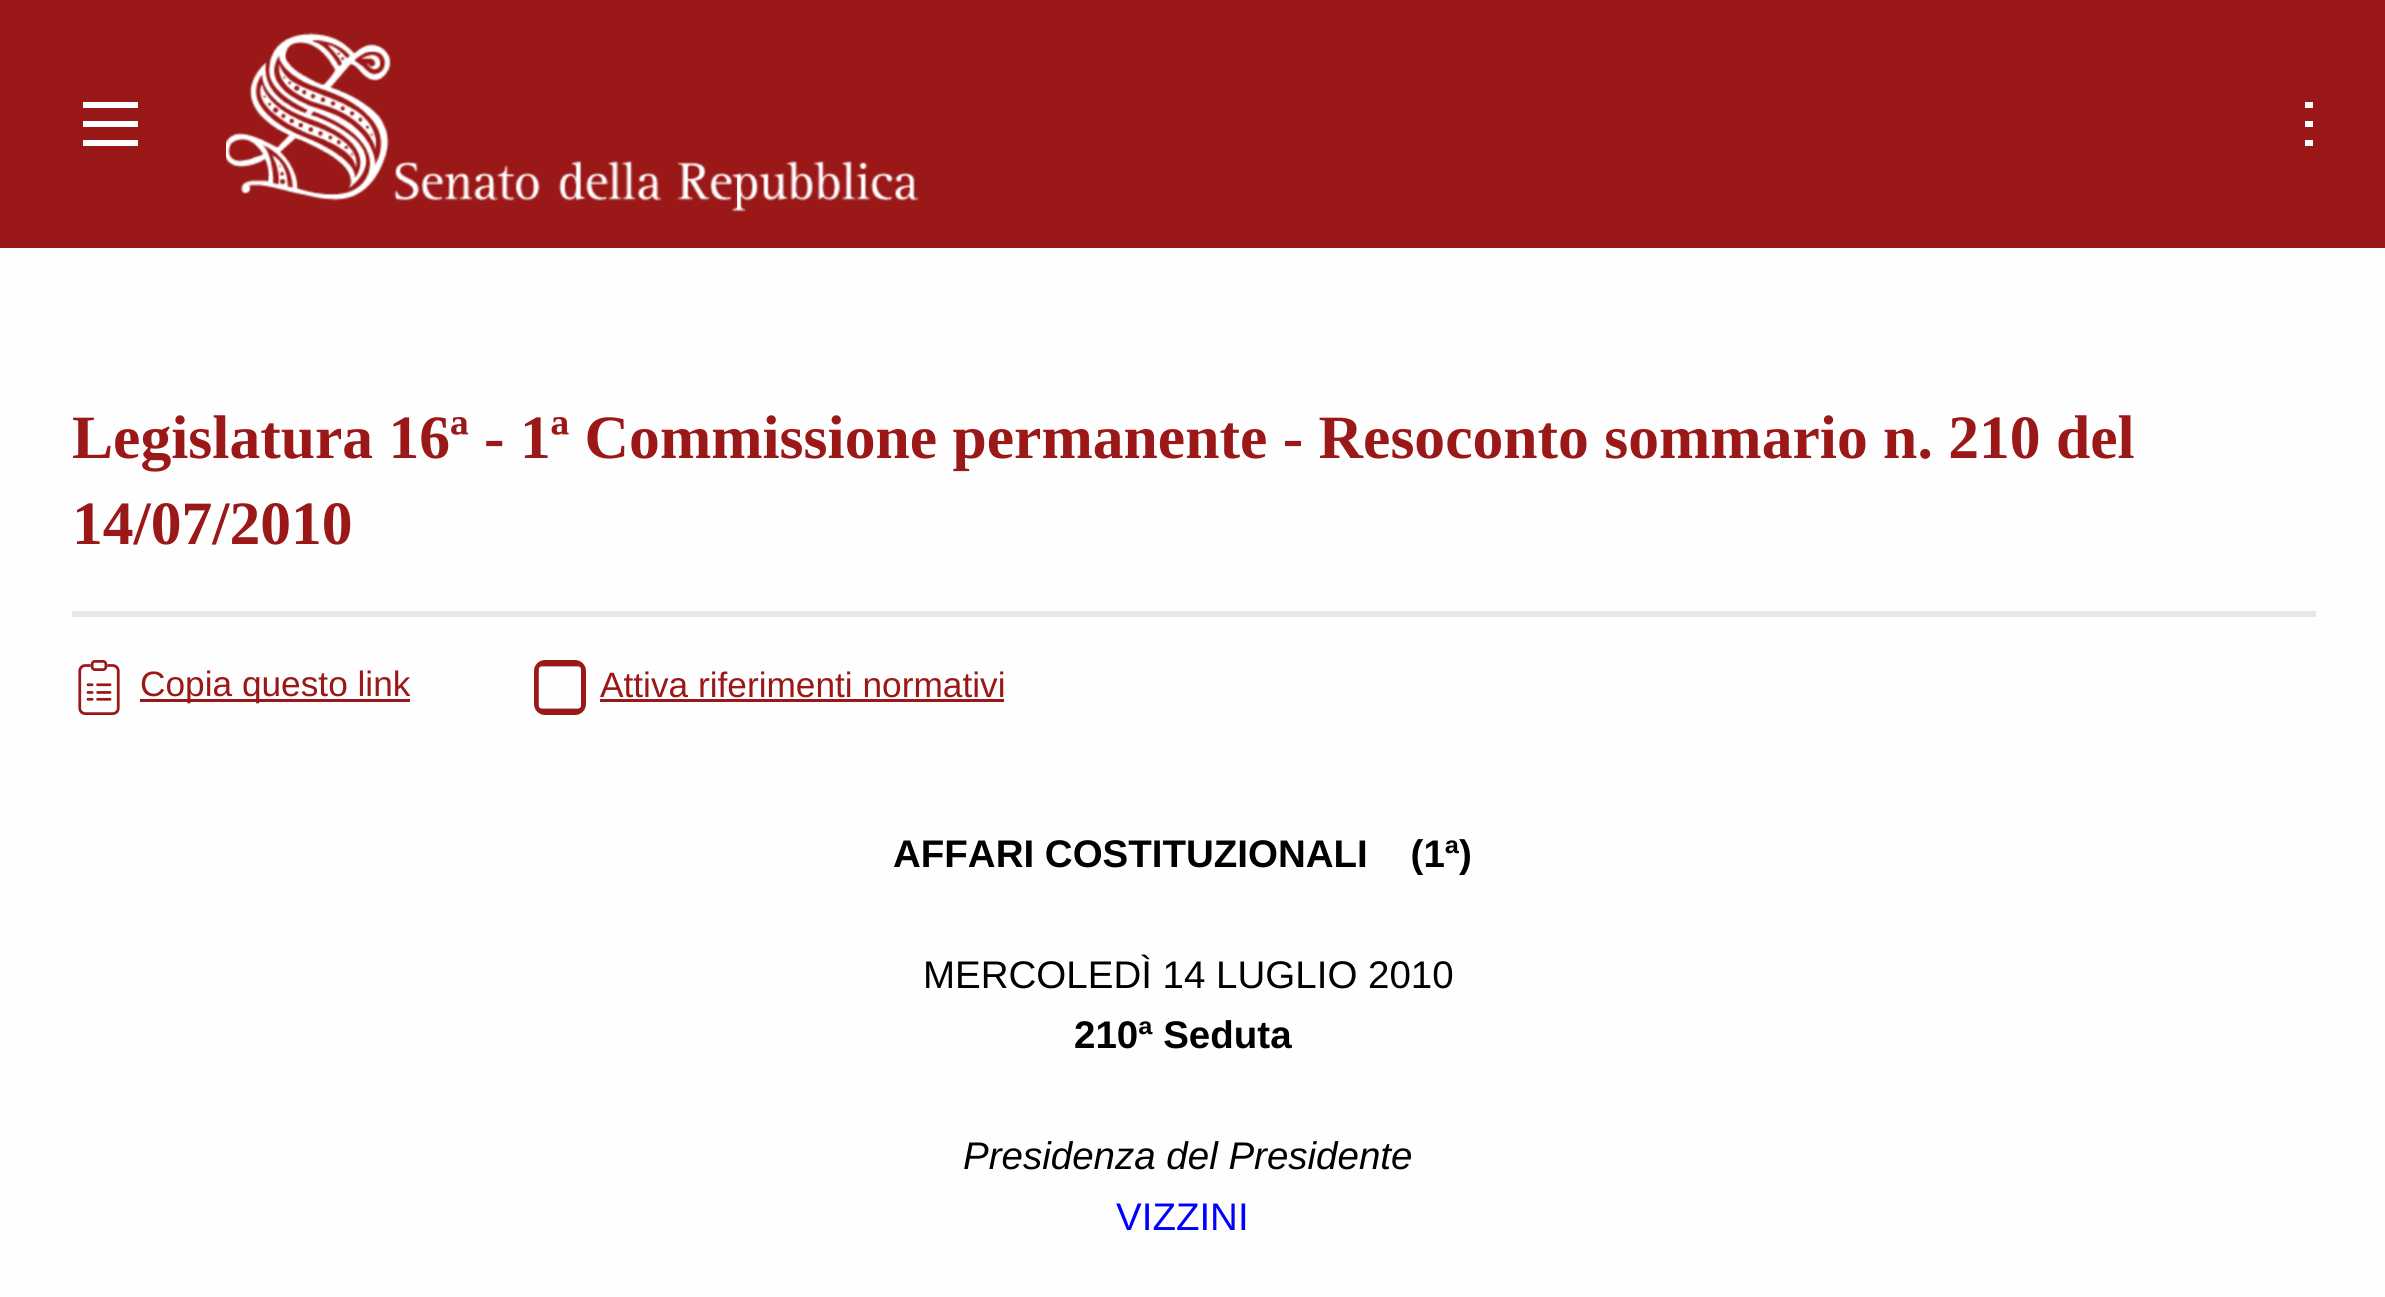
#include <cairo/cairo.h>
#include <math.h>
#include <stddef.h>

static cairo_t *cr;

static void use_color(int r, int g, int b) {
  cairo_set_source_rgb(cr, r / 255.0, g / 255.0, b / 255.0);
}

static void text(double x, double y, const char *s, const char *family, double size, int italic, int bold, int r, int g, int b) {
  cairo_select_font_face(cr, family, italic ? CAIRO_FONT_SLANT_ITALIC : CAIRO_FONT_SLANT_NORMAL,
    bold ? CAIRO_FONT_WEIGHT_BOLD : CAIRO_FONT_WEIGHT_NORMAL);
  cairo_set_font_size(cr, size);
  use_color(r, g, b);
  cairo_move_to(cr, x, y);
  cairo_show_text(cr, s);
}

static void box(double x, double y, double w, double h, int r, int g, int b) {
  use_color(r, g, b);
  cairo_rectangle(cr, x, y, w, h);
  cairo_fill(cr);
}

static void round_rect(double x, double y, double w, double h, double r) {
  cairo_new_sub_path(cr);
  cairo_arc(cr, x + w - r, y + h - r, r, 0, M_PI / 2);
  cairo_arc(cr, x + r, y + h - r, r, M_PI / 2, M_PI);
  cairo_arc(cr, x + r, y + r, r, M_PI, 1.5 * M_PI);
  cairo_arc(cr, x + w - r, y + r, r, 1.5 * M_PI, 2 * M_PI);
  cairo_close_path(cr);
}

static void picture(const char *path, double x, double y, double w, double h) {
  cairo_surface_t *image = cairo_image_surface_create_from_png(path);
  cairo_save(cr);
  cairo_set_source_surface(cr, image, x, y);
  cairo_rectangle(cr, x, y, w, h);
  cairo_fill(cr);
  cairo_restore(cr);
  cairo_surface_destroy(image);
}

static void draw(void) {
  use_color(254, 254, 254);
  cairo_paint(cr);
  box(0, 0, 2385, 248, 155, 24, 24);
  box(83, 140, 55, 6, 254, 254, 254);
  box(83, 121, 55, 6, 254, 254, 254);
  box(83, 102, 55, 6, 254, 254, 254);
  picture("img_01.png", 226, 32, 693, 180);
  box(2305, 140, 8, 6, 254, 254, 254);
  box(2305, 121, 8, 6, 254, 254, 254);
  box(2305, 102, 8, 6, 254, 254, 254);
  box(72, 611, 2244, 6, 231, 231, 231);
  picture("img_02.png", 78, 660, 42, 55);
  box(140, 699, 270, 3, 155, 24, 24);
  picture("img_03.png", 535, 663, 50, 49);
  round_rect(535.5, 661.5, 49, 52, 9.5);
  cairo_set_line_width(cr, 3);
  cairo_stroke(cr);
  box(600, 699, 404, 3, 155, 24, 24);
  text(72, 458, "Legislatura 16ª - 1ª Commissione permanente - Resoconto sommario n. 210 del", "Liberation Serif", 61.6, 0, 1, 155, 24, 24);
  text(72, 544, "14/07/2010", "Liberation Serif", 61.6, 0, 1, 155, 24, 24);
  text(140, 696, "Copia questo link", "Liberation Sans", 35.25, 0, 0, 155, 24, 24);
  text(600, 697, "Attiva riferimenti normativi", "Liberation Sans", 35.25, 0, 0, 155, 24, 24);
  text(893, 867, "AFFARI COSTITUZIONALI    (1ª)", "Liberation Sans", 38.5, 0, 1, 0, 0, 0);
  text(923, 988, "MERCOLEDÌ 14 LUGLIO 2010", "Liberation Sans", 38.5, 0, 0, 0, 0, 0);
  text(1074, 1048, "210ª Seduta", "Liberation Sans", 38.5, 0, 1, 0, 0, 0);
  text(963, 1169, "Presidenza del Presidente", "Liberation Sans", 38.5, 1, 0, 0, 0, 0);
  text(1116, 1230, "VIZZINI", "Liberation Sans", 38.5, 0, 0, 0, 0, 255);
}

int main(void) {
  cairo_surface_t *surface = cairo_image_surface_create(CAIRO_FORMAT_RGB24, 2385, 1297);
  cr = cairo_create(surface);
  cairo_font_options_t *options = cairo_font_options_create();
  cairo_font_options_set_hint_metrics(options, CAIRO_HINT_METRICS_OFF);
  cairo_font_options_set_hint_style(options, CAIRO_HINT_STYLE_NONE);
  cairo_set_font_options(cr, options);
  cairo_set_miter_limit(cr, 4);
  draw();
  cairo_surface_write_to_png(surface, "out.png");
  cairo_font_options_destroy(options);
  cairo_destroy(cr);
  cairo_surface_destroy(surface);
  return 0;
}
